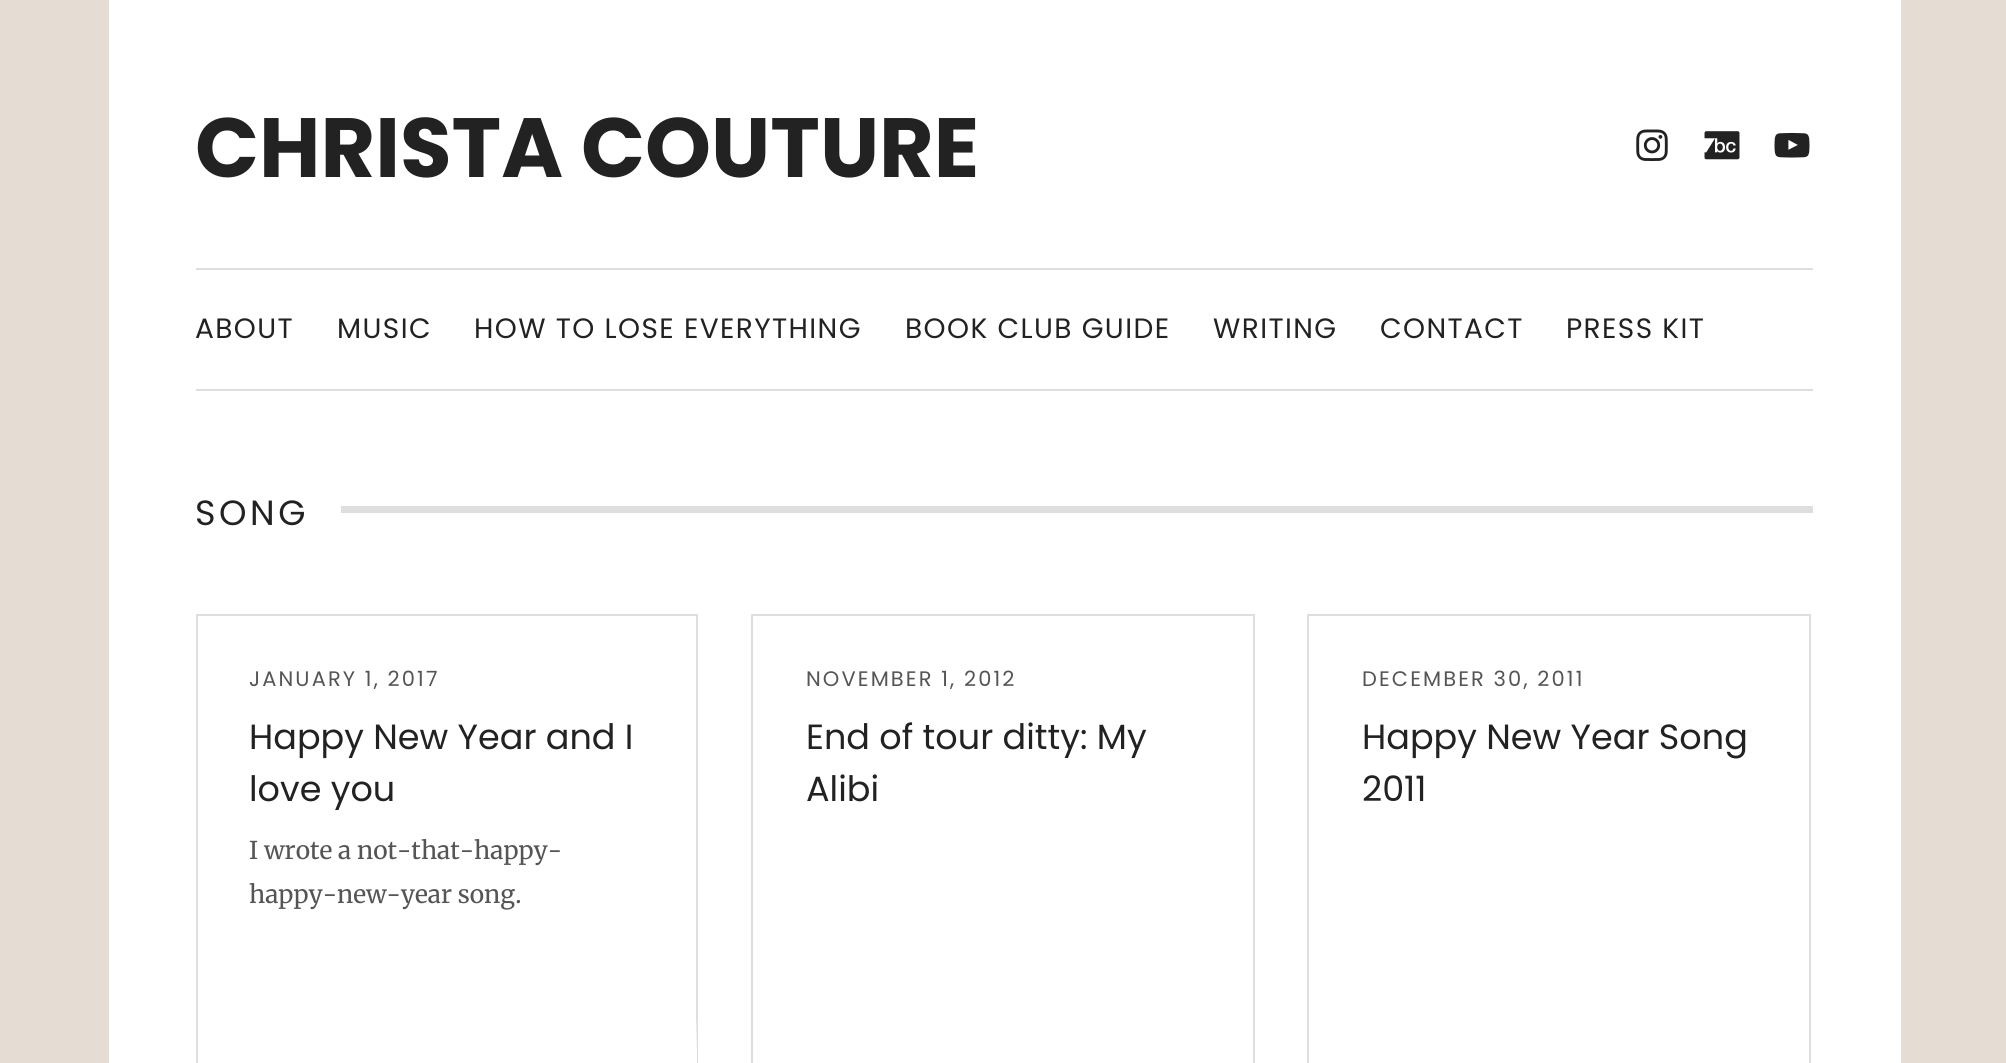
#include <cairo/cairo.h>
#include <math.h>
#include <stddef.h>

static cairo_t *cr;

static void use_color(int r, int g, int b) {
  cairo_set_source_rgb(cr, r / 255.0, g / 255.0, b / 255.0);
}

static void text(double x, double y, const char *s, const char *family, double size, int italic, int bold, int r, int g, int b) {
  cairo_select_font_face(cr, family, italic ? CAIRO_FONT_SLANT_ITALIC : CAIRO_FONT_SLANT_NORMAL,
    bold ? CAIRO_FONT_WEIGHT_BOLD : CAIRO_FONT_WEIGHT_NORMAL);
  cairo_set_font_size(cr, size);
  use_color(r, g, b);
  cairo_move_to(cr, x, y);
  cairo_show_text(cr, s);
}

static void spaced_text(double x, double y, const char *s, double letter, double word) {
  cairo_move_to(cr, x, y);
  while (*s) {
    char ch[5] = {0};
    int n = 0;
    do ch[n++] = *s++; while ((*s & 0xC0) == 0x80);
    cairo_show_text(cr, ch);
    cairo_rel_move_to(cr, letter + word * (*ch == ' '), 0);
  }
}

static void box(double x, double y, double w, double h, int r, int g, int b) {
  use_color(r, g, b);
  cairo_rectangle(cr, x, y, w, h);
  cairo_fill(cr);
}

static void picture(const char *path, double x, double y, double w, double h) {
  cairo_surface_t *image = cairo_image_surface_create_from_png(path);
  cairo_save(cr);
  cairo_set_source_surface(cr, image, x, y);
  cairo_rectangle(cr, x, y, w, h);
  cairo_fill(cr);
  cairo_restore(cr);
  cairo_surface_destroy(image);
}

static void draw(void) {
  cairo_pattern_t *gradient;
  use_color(229, 220, 212);
  cairo_paint(cr);
  box(109, 0, 1792, 1063, 255, 255, 255);
  box(196, 389, 1617, 2, 222, 222, 222);
  picture("img_01.png", 1636, 129, 32, 32);
  picture("img_02.png", 1704, 131, 36, 29);
  picture("img_03.png", 1774, 132, 36, 26);
  box(196, 268, 1617, 2, 222, 222, 222);
  box(341, 506, 1472, 7, 222, 222, 222);
  cairo_rectangle(cr, 197, 615, 500, 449);
  cairo_stroke(cr);
  gradient = cairo_pattern_create_linear(447, 1015, 447, 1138);
  cairo_pattern_add_color_stop_rgba(gradient, 0, 1, 1, 1, 0);
  cairo_pattern_add_color_stop_rgba(gradient, 0.3, 1, 1, 1, 1);
  cairo_pattern_add_color_stop_rgba(gradient, 1, 1, 1, 1, 1);
  cairo_set_source(cr, gradient);
  cairo_pattern_destroy(gradient);
  cairo_rectangle(cr, 696, 1018, 1, 45);
  cairo_fill(cr);
  cairo_rectangle(cr, 752, 615, 502, 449);
  use_color(222, 222, 222);
  cairo_stroke(cr);
  cairo_rectangle(cr, 1308, 615, 502, 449);
  cairo_stroke(cr);
  text(195, 177, "CHRISTA COUTURE", "Poppins", 84, 0, 1, 34, 34, 34);
  cairo_select_font_face(cr, "Poppins", CAIRO_FONT_SLANT_NORMAL, CAIRO_FONT_WEIGHT_NORMAL);
  cairo_set_font_size(cr, 28);
  spaced_text(195, 338, "ABOUT", 1.4, 0);
  spaced_text(337, 338, "MUSIC", 1.4, 0);
  spaced_text(474, 338, "HOW TO LOSE EVERYTHING", 1.4, 0);
  spaced_text(905, 338, "BOOK CLUB GUIDE", 1.4, 0);
  spaced_text(1213, 338, "WRITING", 1.4, 0);
  spaced_text(1380, 338, "CONTACT", 1.4, 0);
  spaced_text(1566, 338, "PRESS KIT", 1.4, 0);
  cairo_set_font_size(cr, 35);
  spaced_text(195, 525, "SONG", 3.5, 0);
  cairo_set_font_size(cr, 21);
  use_color(85, 85, 85);
  spaced_text(249, 686, "JANUARY 1, 2017", 2.1, 0);
  text(249, 749, "Happy New Year and I", "Poppins", 35, 0, 0, 34, 34, 34);
  text(249, 801, "love you", "Poppins", 35, 0, 0, 34, 34, 34);
  text(249, 859, "I wrote a not-that-happy-", "Merriweather", 24.5, 0, 0, 85, 85, 85);
  text(249, 903, "happy-new-year song.", "Merriweather", 24.5, 0, 0, 85, 85, 85);
  cairo_select_font_face(cr, "Poppins", CAIRO_FONT_SLANT_NORMAL, CAIRO_FONT_WEIGHT_NORMAL);
  cairo_set_font_size(cr, 21);
  spaced_text(806, 686, "NOVEMBER 1, 2012", 2.1, 0);
  text(806, 749, "End of tour ditty: My", "Poppins", 35, 0, 0, 34, 34, 34);
  text(806, 801, "Alibi", "Poppins", 35, 0, 0, 34, 34, 34);
  cairo_set_font_size(cr, 21);
  use_color(85, 85, 85);
  spaced_text(1362, 686, "DECEMBER 30, 2011", 2.1, 0);
  text(1362, 749, "Happy New Year Song", "Poppins", 35, 0, 0, 34, 34, 34);
  text(1362, 801, "2011", "Poppins", 35, 0, 0, 34, 34, 34);
}

int main(void) {
  cairo_surface_t *surface = cairo_image_surface_create(CAIRO_FORMAT_RGB24, 2006, 1063);
  cr = cairo_create(surface);
  cairo_font_options_t *options = cairo_font_options_create();
  cairo_font_options_set_hint_metrics(options, CAIRO_HINT_METRICS_OFF);
  cairo_font_options_set_hint_style(options, CAIRO_HINT_STYLE_NONE);
  cairo_set_font_options(cr, options);
  cairo_set_miter_limit(cr, 4);
  draw();
  cairo_surface_write_to_png(surface, "out.png");
  cairo_font_options_destroy(options);
  cairo_destroy(cr);
  cairo_surface_destroy(surface);
  return 0;
}
